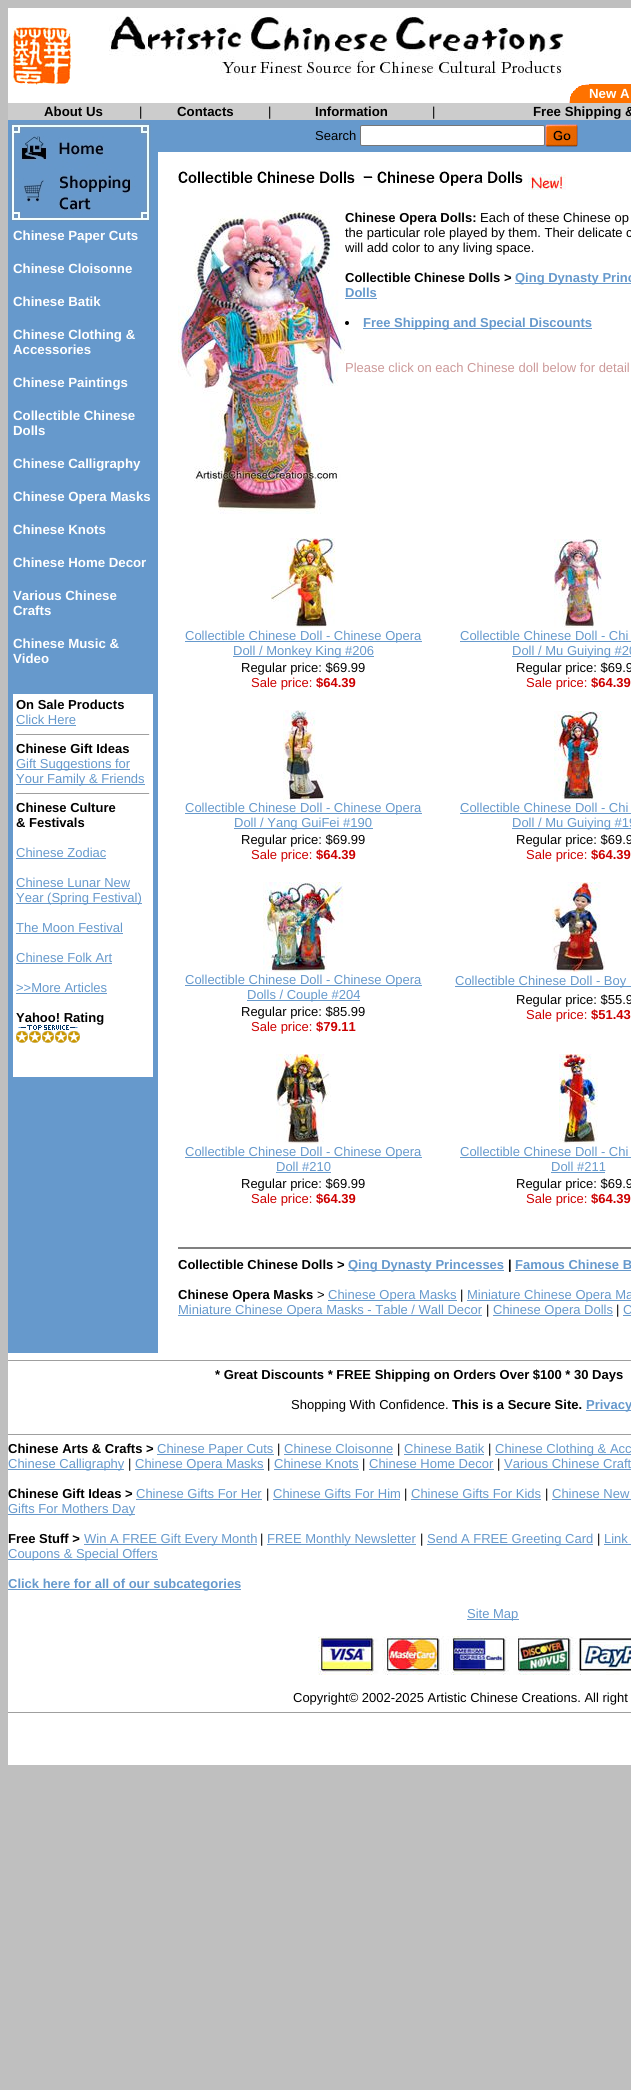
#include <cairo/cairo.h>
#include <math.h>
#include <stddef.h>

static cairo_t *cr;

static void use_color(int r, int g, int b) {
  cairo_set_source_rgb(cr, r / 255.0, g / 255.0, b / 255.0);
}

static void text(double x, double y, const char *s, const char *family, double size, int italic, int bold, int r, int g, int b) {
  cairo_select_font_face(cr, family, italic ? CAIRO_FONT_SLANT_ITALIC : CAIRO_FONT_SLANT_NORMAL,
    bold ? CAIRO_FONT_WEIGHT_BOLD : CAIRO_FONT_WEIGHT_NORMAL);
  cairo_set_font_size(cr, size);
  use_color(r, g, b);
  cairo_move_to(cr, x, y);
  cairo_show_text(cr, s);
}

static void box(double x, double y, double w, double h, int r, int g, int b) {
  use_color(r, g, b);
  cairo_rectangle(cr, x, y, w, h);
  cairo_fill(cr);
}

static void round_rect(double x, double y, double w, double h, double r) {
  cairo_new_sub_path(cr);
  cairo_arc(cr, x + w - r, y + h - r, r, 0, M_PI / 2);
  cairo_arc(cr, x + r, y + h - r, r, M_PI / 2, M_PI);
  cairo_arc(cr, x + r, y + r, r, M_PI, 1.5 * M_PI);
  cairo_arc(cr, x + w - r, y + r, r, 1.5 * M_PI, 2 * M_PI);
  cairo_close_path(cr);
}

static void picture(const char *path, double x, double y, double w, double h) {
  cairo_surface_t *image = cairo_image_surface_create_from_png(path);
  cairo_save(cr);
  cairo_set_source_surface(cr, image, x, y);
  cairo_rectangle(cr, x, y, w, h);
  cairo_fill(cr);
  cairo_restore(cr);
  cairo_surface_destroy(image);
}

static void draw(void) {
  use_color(191, 191, 191);
  cairo_paint(cr);
  box(8, 8, 623, 95, 255, 255, 255);
  picture("img_01.png", 12, 26, 60, 59);
  picture("img_02.png", 109, 16, 455, 64);
  box(589, 84, 42, 19, 255, 114, 0);
  picture("img_03.png", 569, 84, 20, 19);
  box(8, 103, 623, 17, 204, 204, 204);
  box(158, 152, 473, 1201, 255, 255, 255);
  box(8, 120, 150, 1233, 102, 153, 204);
  picture("img_04.png", 11, 123, 140, 98);
  box(13, 694, 140, 383, 255, 255, 255);
  box(16, 725, 60, 1, 102, 153, 204);
  box(16, 734, 134, 1, 159, 159, 159);
  box(149, 734, 1, 1, 238, 238, 238);
  box(16, 769, 114, 1, 102, 153, 204);
  box(16, 784, 129, 1, 102, 153, 204);
  box(16, 793, 134, 1, 159, 159, 159);
  box(149, 793, 1, 1, 238, 238, 238);
  box(16, 858, 90, 1, 102, 153, 204);
  box(16, 888, 114, 1, 102, 153, 204);
  box(16, 903, 126, 1, 102, 153, 204);
  box(16, 933, 107, 1, 102, 153, 204);
  box(16, 963, 96, 1, 102, 153, 204);
  box(16, 993, 91, 1, 102, 153, 204);
  picture("img_05.png", 16, 1025, 64, 18);
  box(158, 120, 473, 32, 102, 153, 204);
  use_color(255, 255, 255);
  round_rect(360.5, 125.5, 184, 20, 1.5);
  cairo_fill_preserve(cr);
  use_color(118, 118, 118);
  cairo_set_line_width(cr, 1);
  cairo_stroke(cr);
  picture("img_06.png", 545, 124, 33, 23);
  picture("img_07.png", 178, 171, 345, 15);
  picture("img_08.png", 528, 174, 38, 16);
  picture("img_09.png", 178, 210, 167, 304);
  box(515, 283, 116, 1, 102, 153, 204);
  box(345, 298, 32, 1, 102, 153, 204);
  use_color(0, 0, 0);
  cairo_arc(cr, 347, 323, 2, 0, 2 * M_PI);
  cairo_fill(cr);
  box(363, 328, 229, 1, 102, 153, 204);
  picture("img_10.png", 271, 538, 65, 90);
  picture("img_11.png", 554, 539, 48, 89);
  box(185, 641, 237, 1, 102, 153, 204);
  box(233, 656, 141, 1, 102, 153, 204);
  box(460, 641, 171, 1, 102, 153, 204);
  box(512, 656, 119, 1, 102, 153, 204);
  picture("img_12.png", 283, 710, 41, 90);
  picture("img_13.png", 554, 711, 49, 89);
  box(185, 813, 237, 1, 102, 153, 204);
  box(234, 828, 139, 1, 102, 153, 204);
  box(460, 813, 171, 1, 102, 153, 204);
  box(512, 828, 119, 1, 102, 153, 204);
  picture("img_14.png", 263, 882, 81, 90);
  picture("img_15.png", 552, 882, 53, 90);
  box(185, 985, 237, 1, 102, 153, 204);
  box(247, 1000, 113, 1, 102, 153, 204);
  box(455, 986, 176, 1, 102, 153, 204);
  picture("img_16.png", 276, 1054, 55, 90);
  picture("img_17.png", 559, 1054, 39, 90);
  box(185, 1157, 237, 1, 102, 153, 204);
  box(276, 1172, 55, 1, 102, 153, 204);
  box(460, 1157, 171, 1, 102, 153, 204);
  box(551, 1172, 54, 1, 102, 153, 204);
  box(178, 1247, 453, 2, 128, 128, 128);
  box(348, 1270, 156, 1, 102, 153, 204);
  box(515, 1270, 116, 1, 102, 153, 204);
  box(328, 1300, 129, 1, 102, 153, 204);
  box(467, 1300, 164, 1, 102, 153, 204);
  box(178, 1315, 304, 1, 102, 153, 204);
  box(493, 1315, 120, 1, 102, 153, 204);
  box(623, 1315, 8, 1, 102, 153, 204);
  box(8, 1353, 623, 412, 255, 255, 255);
  box(8, 1360, 623, 1, 159, 159, 159);
  box(586, 1410, 45, 1, 102, 153, 204);
  box(8, 1434, 623, 1, 159, 159, 159);
  box(157, 1454, 117, 1, 102, 153, 204);
  box(284, 1454, 109, 1, 102, 153, 204);
  box(404, 1454, 80, 1, 102, 153, 204);
  box(495, 1454, 136, 1, 102, 153, 204);
  box(8, 1469, 116, 1, 102, 153, 204);
  box(135, 1469, 129, 1, 102, 153, 204);
  box(274, 1469, 85, 1, 102, 153, 204);
  box(369, 1469, 125, 1, 102, 153, 204);
  box(504, 1469, 127, 1, 102, 153, 204);
  box(136, 1499, 126, 1, 102, 153, 204);
  box(273, 1499, 127, 1, 102, 153, 204);
  box(411, 1499, 130, 1, 102, 153, 204);
  box(552, 1499, 79, 1, 102, 153, 204);
  box(8, 1514, 127, 1, 102, 153, 204);
  box(84, 1544, 173, 1, 102, 153, 204);
  box(267, 1544, 149, 1, 102, 153, 204);
  box(427, 1544, 166, 1, 102, 153, 204);
  box(604, 1544, 27, 1, 102, 153, 204);
  box(8, 1559, 150, 1, 102, 153, 204);
  box(8, 1589, 233, 1, 102, 153, 204);
  box(467, 1619, 52, 1, 102, 153, 204);
  picture("img_18.png", 318, 1636, 313, 39);
  box(8, 1712, 623, 1, 159, 159, 159);
  text(589, 98, "New A", "Liberation Sans", 13.25, 0, 1, 255, 255, 255);
  text(44, 116, "About Us", "Liberation Sans", 13.25, 0, 1, 0, 0, 0);
  text(139, 116, "|", "Liberation Sans", 13, 0, 0, 0, 0, 0);
  text(177, 116, "Contacts", "Liberation Sans", 13.25, 0, 1, 0, 0, 0);
  text(268, 116, "|", "Liberation Sans", 13, 0, 0, 0, 0, 0);
  text(315, 116, "Information", "Liberation Sans", 13.25, 0, 1, 0, 0, 0);
  text(432, 116, "|", "Liberation Sans", 13, 0, 0, 0, 0, 0);
  text(533, 116, "Free Shipping &", "Liberation Sans", 13.25, 0, 1, 0, 0, 0);
  text(13, 240, "Chinese Paper Cuts", "Liberation Sans", 13.25, 0, 1, 255, 255, 255);
  text(13, 273, "Chinese Cloisonne", "Liberation Sans", 13.25, 0, 1, 255, 255, 255);
  text(13, 306, "Chinese Batik", "Liberation Sans", 13.25, 0, 1, 255, 255, 255);
  text(13, 339, "Chinese Clothing &", "Liberation Sans", 13.25, 0, 1, 255, 255, 255);
  text(13, 354, "Accessories", "Liberation Sans", 13.25, 0, 1, 255, 255, 255);
  text(13, 387, "Chinese Paintings", "Liberation Sans", 13.25, 0, 1, 255, 255, 255);
  text(13, 420, "Collectible Chinese", "Liberation Sans", 13.25, 0, 1, 255, 255, 255);
  text(13, 435, "Dolls", "Liberation Sans", 13.25, 0, 1, 255, 255, 255);
  text(13, 468, "Chinese Calligraphy", "Liberation Sans", 13.25, 0, 1, 255, 255, 255);
  text(13, 501, "Chinese Opera Masks", "Liberation Sans", 13.25, 0, 1, 255, 255, 255);
  text(13, 534, "Chinese Knots", "Liberation Sans", 13.25, 0, 1, 255, 255, 255);
  text(13, 567, "Chinese Home Decor", "Liberation Sans", 13.25, 0, 1, 255, 255, 255);
  text(13, 600, "Various Chinese", "Liberation Sans", 13.25, 0, 1, 255, 255, 255);
  text(13, 615, "Crafts", "Liberation Sans", 13.25, 0, 1, 255, 255, 255);
  text(13, 648, "Chinese Music &", "Liberation Sans", 13.25, 0, 1, 255, 255, 255);
  text(13, 663, "Video", "Liberation Sans", 13.25, 0, 1, 255, 255, 255);
  text(16, 709, "On Sale Products", "Liberation Sans", 13, 0, 1, 0, 0, 0);
  text(16, 724, "Click Here", "Liberation Sans", 13, 0, 0, 102, 153, 204);
  text(16, 753, "Chinese Gift Ideas", "Liberation Sans", 13, 0, 1, 0, 0, 0);
  text(16, 768, "Gift Suggestions for", "Liberation Sans", 13, 0, 0, 102, 153, 204);
  text(16, 783, "Your Family & Friends", "Liberation Sans", 13, 0, 0, 102, 153, 204);
  text(16, 812, "Chinese Culture", "Liberation Sans", 13, 0, 1, 0, 0, 0);
  text(16, 827, "& Festivals", "Liberation Sans", 13, 0, 1, 0, 0, 0);
  text(16, 857, "Chinese Zodiac", "Liberation Sans", 13, 0, 0, 102, 153, 204);
  text(16, 887, "Chinese Lunar New", "Liberation Sans", 13, 0, 0, 102, 153, 204);
  text(16, 902, "Year (Spring Festival)", "Liberation Sans", 13, 0, 0, 102, 153, 204);
  text(16, 932, "The Moon Festival", "Liberation Sans", 13, 0, 0, 102, 153, 204);
  text(16, 962, "Chinese Folk Art", "Liberation Sans", 13, 0, 0, 102, 153, 204);
  text(16, 992, ">>More Articles", "Liberation Sans", 13, 0, 0, 102, 153, 204);
  text(16, 1022, "Yahoo! Rating", "Liberation Sans", 13, 0, 1, 0, 0, 0);
  text(315, 140, "Search", "Liberation Sans", 13, 0, 0, 0, 0, 0);
  text(345, 222, "Chinese Opera Dolls:", "Liberation Sans", 13, 0, 1, 0, 0, 0);
  text(480, 222, "Each of these Chinese op", "Liberation Sans", 13, 0, 0, 0, 0, 0);
  text(345, 237, "the particular role played by them. Their delicate c", "Liberation Sans", 13, 0, 0, 0, 0, 0);
  text(345, 252, "will add color to any living space.", "Liberation Sans", 13, 0, 0, 0, 0, 0);
  text(345, 282, "Collectible Chinese Dolls >", "Liberation Sans", 13, 0, 1, 0, 0, 0);
  text(515, 282, "Qing Dynasty Princ", "Liberation Sans", 13, 0, 1, 102, 153, 204);
  text(345, 297, "Dolls", "Liberation Sans", 13, 0, 1, 102, 153, 204);
  text(363, 327, "Free Shipping and Special Discounts", "Liberation Sans", 13, 0, 1, 102, 153, 204);
  text(345, 372, "Please click on each Chinese doll below for detail", "Liberation Sans", 13, 0, 0, 204, 153, 153);
  text(185, 640, "Collectible Chinese Doll - Chinese Opera", "Liberation Sans", 13, 0, 0, 102, 153, 204);
  text(233, 655, "Doll / Monkey King #206", "Liberation Sans", 13, 0, 0, 102, 153, 204);
  text(241, 672, "Regular price: $69.99", "Liberation Sans", 13, 0, 0, 0, 0, 0);
  text(251, 687, "Sale price:", "Liberation Sans", 13, 0, 0, 204, 0, 0);
  text(316, 687, "$64.39", "Liberation Sans", 13, 0, 1, 204, 0, 0);
  text(460, 640, "Collectible Chinese Doll - Chi", "Liberation Sans", 13, 0, 0, 102, 153, 204);
  text(512, 655, "Doll / Mu Guiying #20", "Liberation Sans", 13, 0, 0, 102, 153, 204);
  text(516, 672, "Regular price: $69.9", "Liberation Sans", 13, 0, 0, 0, 0, 0);
  text(526, 687, "Sale price:", "Liberation Sans", 13, 0, 0, 204, 0, 0);
  text(591, 687, "$64.39", "Liberation Sans", 13, 0, 1, 204, 0, 0);
  text(185, 812, "Collectible Chinese Doll - Chinese Opera", "Liberation Sans", 13, 0, 0, 102, 153, 204);
  text(234, 827, "Doll / Yang GuiFei #190", "Liberation Sans", 13, 0, 0, 102, 153, 204);
  text(241, 844, "Regular price: $69.99", "Liberation Sans", 13, 0, 0, 0, 0, 0);
  text(251, 859, "Sale price:", "Liberation Sans", 13, 0, 0, 204, 0, 0);
  text(316, 859, "$64.39", "Liberation Sans", 13, 0, 1, 204, 0, 0);
  text(460, 812, "Collectible Chinese Doll - Chi", "Liberation Sans", 13, 0, 0, 102, 153, 204);
  text(512, 827, "Doll / Mu Guiying #19", "Liberation Sans", 13, 0, 0, 102, 153, 204);
  text(516, 844, "Regular price: $69.9", "Liberation Sans", 13, 0, 0, 0, 0, 0);
  text(526, 859, "Sale price:", "Liberation Sans", 13, 0, 0, 204, 0, 0);
  text(591, 859, "$64.39", "Liberation Sans", 13, 0, 1, 204, 0, 0);
  text(185, 984, "Collectible Chinese Doll - Chinese Opera", "Liberation Sans", 13, 0, 0, 102, 153, 204);
  text(247, 999, "Dolls / Couple #204", "Liberation Sans", 13, 0, 0, 102, 153, 204);
  text(241, 1016, "Regular price: $85.99", "Liberation Sans", 13, 0, 0, 0, 0, 0);
  text(251, 1031, "Sale price:", "Liberation Sans", 13, 0, 0, 204, 0, 0);
  text(316, 1031, "$79.11", "Liberation Sans", 13, 0, 1, 204, 0, 0);
  text(455, 985, "Collectible Chinese Doll - Boy", "Liberation Sans", 13, 0, 0, 102, 153, 204);
  text(516, 1004, "Regular price: $55.9", "Liberation Sans", 13, 0, 0, 0, 0, 0);
  text(526, 1019, "Sale price:", "Liberation Sans", 13, 0, 0, 204, 0, 0);
  text(591, 1019, "$51.43", "Liberation Sans", 13, 0, 1, 204, 0, 0);
  text(185, 1156, "Collectible Chinese Doll - Chinese Opera", "Liberation Sans", 13, 0, 0, 102, 153, 204);
  text(276, 1171, "Doll #210", "Liberation Sans", 13, 0, 0, 102, 153, 204);
  text(241, 1188, "Regular price: $69.99", "Liberation Sans", 13, 0, 0, 0, 0, 0);
  text(251, 1203, "Sale price:", "Liberation Sans", 13, 0, 0, 204, 0, 0);
  text(316, 1203, "$64.39", "Liberation Sans", 13, 0, 1, 204, 0, 0);
  text(460, 1156, "Collectible Chinese Doll - Chi", "Liberation Sans", 13, 0, 0, 102, 153, 204);
  text(551, 1171, "Doll #211", "Liberation Sans", 13, 0, 0, 102, 153, 204);
  text(516, 1188, "Regular price: $69.9", "Liberation Sans", 13, 0, 0, 0, 0, 0);
  text(526, 1203, "Sale price:", "Liberation Sans", 13, 0, 0, 204, 0, 0);
  text(591, 1203, "$64.39", "Liberation Sans", 13, 0, 1, 204, 0, 0);
  text(178, 1269, "Collectible Chinese Dolls >", "Liberation Sans", 13, 0, 1, 0, 0, 0);
  text(348, 1269, "Qing Dynasty Princesses", "Liberation Sans", 13, 0, 1, 102, 153, 204);
  text(508, 1269, "|", "Liberation Sans", 13, 0, 1, 0, 0, 0);
  text(515, 1269, "Famous Chinese B", "Liberation Sans", 13, 0, 1, 102, 153, 204);
  text(178, 1299, "Chinese Opera Masks", "Liberation Sans", 13, 0, 1, 0, 0, 0);
  text(317, 1299, ">", "Liberation Sans", 13, 0, 0, 0, 0, 0);
  text(328, 1299, "Chinese Opera Masks", "Liberation Sans", 13, 0, 0, 102, 153, 204);
  text(460, 1299, "|", "Liberation Sans", 13, 0, 0, 0, 0, 0);
  text(467, 1299, "Miniature Chinese Opera Ma", "Liberation Sans", 13, 0, 0, 102, 153, 204);
  text(178, 1314, "Miniature Chinese Opera Masks - Table / Wall Decor", "Liberation Sans", 13, 0, 0, 102, 153, 204);
  text(486, 1314, "|", "Liberation Sans", 13, 0, 0, 0, 0, 0);
  text(493, 1314, "Chinese Opera Dolls", "Liberation Sans", 13, 0, 0, 102, 153, 204);
  text(616, 1314, "|", "Liberation Sans", 13, 0, 0, 0, 0, 0);
  text(623, 1314, "C", "Liberation Sans", 13, 0, 0, 102, 153, 204);
  text(215, 1379, "* Great Discounts * FREE Shipping on Orders Over $100 * 30 Days", "Liberation Sans", 13, 0, 1, 0, 0, 0);
  text(291, 1409, "Shopping With Confidence.", "Liberation Sans", 13, 0, 0, 0, 0, 0);
  text(452, 1409, "This is a Secure Site.", "Liberation Sans", 13, 0, 1, 0, 0, 0);
  text(586, 1409, "Privacy", "Liberation Sans", 13, 0, 1, 102, 153, 204);
  text(8, 1453, "Chinese Arts & Crafts >", "Liberation Sans", 13, 0, 1, 0, 0, 0);
  text(157, 1453, "Chinese Paper Cuts", "Liberation Sans", 13, 0, 0, 102, 153, 204);
  text(277, 1453, "|", "Liberation Sans", 13, 0, 0, 0, 0, 0);
  text(284, 1453, "Chinese Cloisonne", "Liberation Sans", 13, 0, 0, 102, 153, 204);
  text(397, 1453, "|", "Liberation Sans", 13, 0, 0, 0, 0, 0);
  text(404, 1453, "Chinese Batik", "Liberation Sans", 13, 0, 0, 102, 153, 204);
  text(488, 1453, "|", "Liberation Sans", 13, 0, 0, 0, 0, 0);
  text(495, 1453, "Chinese Clothing & Acc", "Liberation Sans", 13, 0, 0, 102, 153, 204);
  text(8, 1468, "Chinese Calligraphy", "Liberation Sans", 13, 0, 0, 102, 153, 204);
  text(128, 1468, "|", "Liberation Sans", 13, 0, 0, 0, 0, 0);
  text(135, 1468, "Chinese Opera Masks", "Liberation Sans", 13, 0, 0, 102, 153, 204);
  text(267, 1468, "|", "Liberation Sans", 13, 0, 0, 0, 0, 0);
  text(274, 1468, "Chinese Knots", "Liberation Sans", 13, 0, 0, 102, 153, 204);
  text(362, 1468, "|", "Liberation Sans", 13, 0, 0, 0, 0, 0);
  text(369, 1468, "Chinese Home Decor", "Liberation Sans", 13, 0, 0, 102, 153, 204);
  text(497, 1468, "|", "Liberation Sans", 13, 0, 0, 0, 0, 0);
  text(504, 1468, "Various Chinese Craft", "Liberation Sans", 13, 0, 0, 102, 153, 204);
  text(8, 1498, "Chinese Gift Ideas >", "Liberation Sans", 13, 0, 1, 0, 0, 0);
  text(136, 1498, "Chinese Gifts For Her", "Liberation Sans", 13, 0, 0, 102, 153, 204);
  text(266, 1498, "|", "Liberation Sans", 13, 0, 0, 0, 0, 0);
  text(273, 1498, "Chinese Gifts For Him", "Liberation Sans", 13, 0, 0, 102, 153, 204);
  text(404, 1498, "|", "Liberation Sans", 13, 0, 0, 0, 0, 0);
  text(411, 1498, "Chinese Gifts For Kids", "Liberation Sans", 13, 0, 0, 102, 153, 204);
  text(545, 1498, "|", "Liberation Sans", 13, 0, 0, 0, 0, 0);
  text(552, 1498, "Chinese New", "Liberation Sans", 13, 0, 0, 102, 153, 204);
  text(8, 1513, "Gifts For Mothers Day", "Liberation Sans", 13, 0, 0, 102, 153, 204);
  text(8, 1543, "Free Stuff >", "Liberation Sans", 13, 0, 1, 0, 0, 0);
  text(84, 1543, "Win A FREE Gift Every Month", "Liberation Sans", 13, 0, 0, 102, 153, 204);
  text(260, 1543, "|", "Liberation Sans", 13, 0, 0, 0, 0, 0);
  text(267, 1543, "FREE Monthly Newsletter", "Liberation Sans", 13, 0, 0, 102, 153, 204);
  text(420, 1543, "|", "Liberation Sans", 13, 0, 0, 0, 0, 0);
  text(427, 1543, "Send A FREE Greeting Card", "Liberation Sans", 13, 0, 0, 102, 153, 204);
  text(597, 1543, "|", "Liberation Sans", 13, 0, 0, 0, 0, 0);
  text(604, 1543, "Link", "Liberation Sans", 13, 0, 0, 102, 153, 204);
  text(8, 1558, "Coupons & Special Offers", "Liberation Sans", 13, 0, 0, 102, 153, 204);
  text(8, 1588, "Click here for all of our subcategories", "Liberation Sans", 13, 0, 1, 102, 153, 204);
  text(467, 1618, "Site Map", "Liberation Sans", 13, 0, 0, 102, 153, 204);
  text(293, 1702, "Copyright© 2002-2025 Artistic Chinese Creations. All right", "Liberation Sans", 13, 0, 0, 0, 0, 0);
}

int main(void) {
  cairo_surface_t *surface = cairo_image_surface_create(CAIRO_FORMAT_RGB24, 631, 2090);
  cr = cairo_create(surface);
  cairo_font_options_t *options = cairo_font_options_create();
  cairo_font_options_set_hint_metrics(options, CAIRO_HINT_METRICS_OFF);
  cairo_font_options_set_hint_style(options, CAIRO_HINT_STYLE_NONE);
  cairo_set_font_options(cr, options);
  cairo_set_miter_limit(cr, 4);
  draw();
  cairo_surface_write_to_png(surface, "out.png");
  cairo_font_options_destroy(options);
  cairo_destroy(cr);
  cairo_surface_destroy(surface);
  return 0;
}
